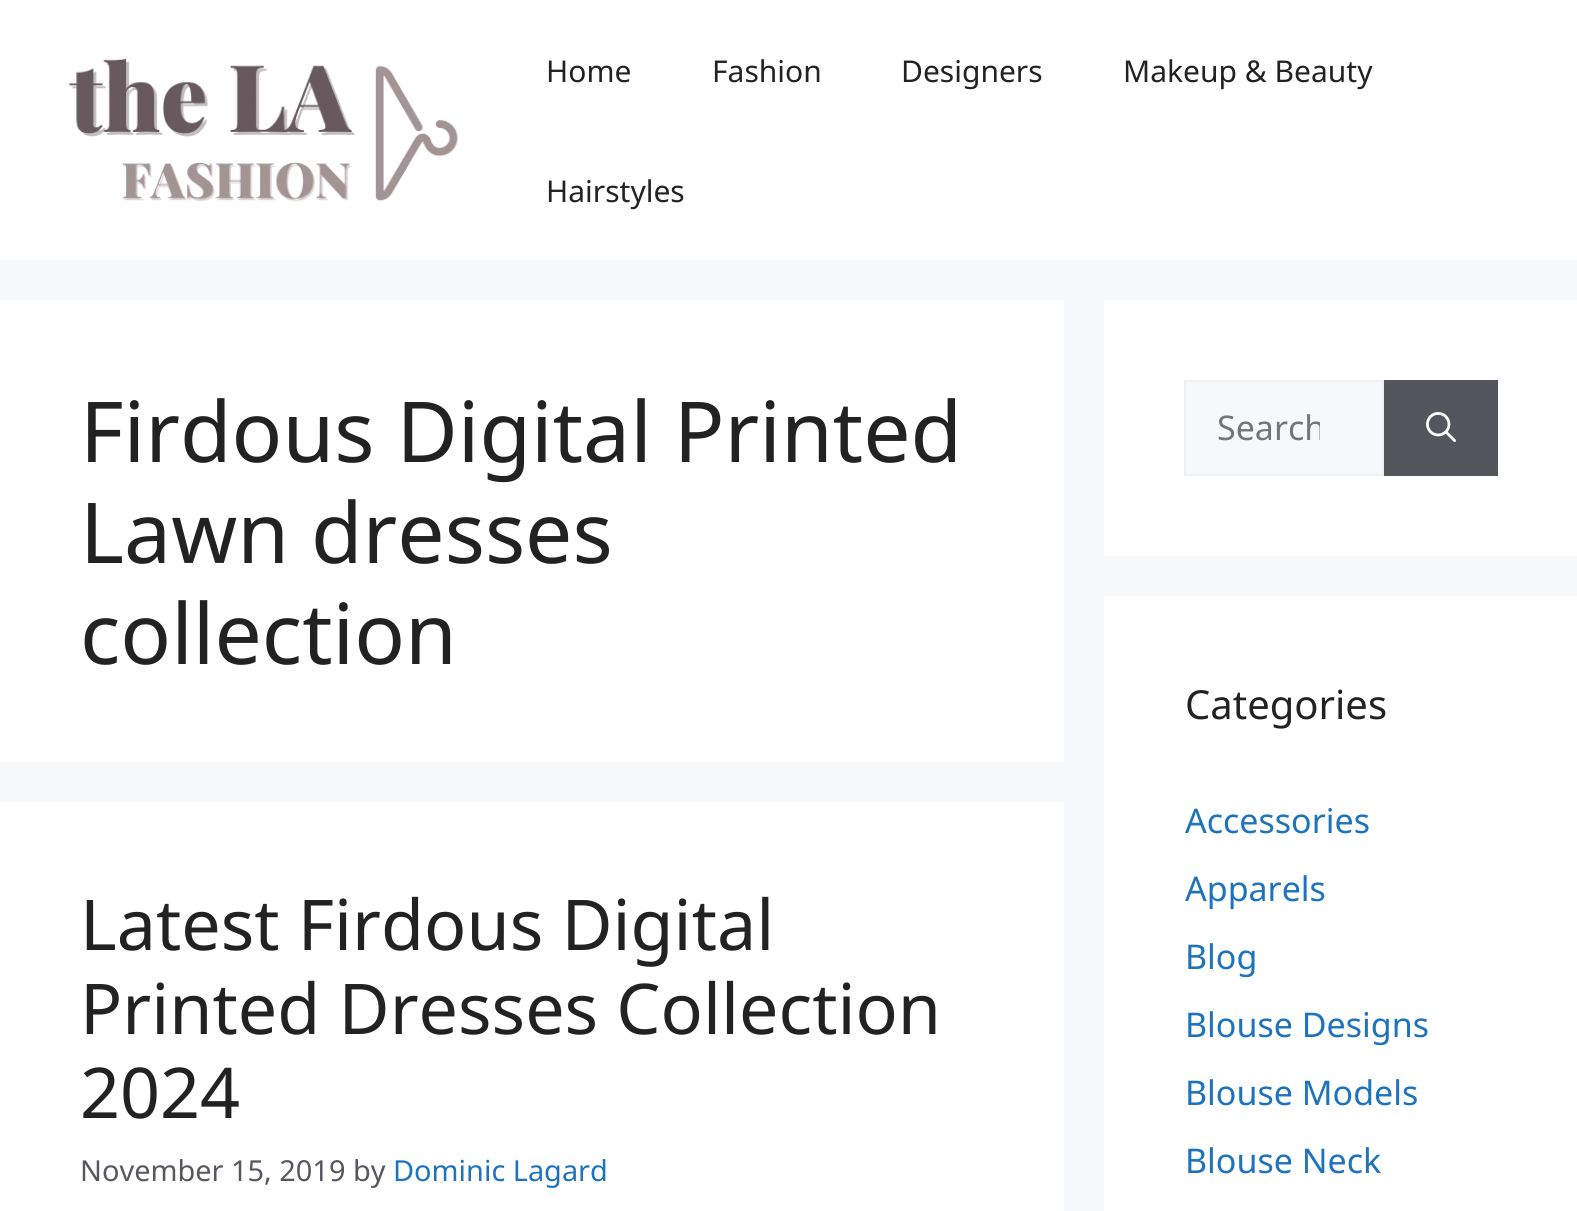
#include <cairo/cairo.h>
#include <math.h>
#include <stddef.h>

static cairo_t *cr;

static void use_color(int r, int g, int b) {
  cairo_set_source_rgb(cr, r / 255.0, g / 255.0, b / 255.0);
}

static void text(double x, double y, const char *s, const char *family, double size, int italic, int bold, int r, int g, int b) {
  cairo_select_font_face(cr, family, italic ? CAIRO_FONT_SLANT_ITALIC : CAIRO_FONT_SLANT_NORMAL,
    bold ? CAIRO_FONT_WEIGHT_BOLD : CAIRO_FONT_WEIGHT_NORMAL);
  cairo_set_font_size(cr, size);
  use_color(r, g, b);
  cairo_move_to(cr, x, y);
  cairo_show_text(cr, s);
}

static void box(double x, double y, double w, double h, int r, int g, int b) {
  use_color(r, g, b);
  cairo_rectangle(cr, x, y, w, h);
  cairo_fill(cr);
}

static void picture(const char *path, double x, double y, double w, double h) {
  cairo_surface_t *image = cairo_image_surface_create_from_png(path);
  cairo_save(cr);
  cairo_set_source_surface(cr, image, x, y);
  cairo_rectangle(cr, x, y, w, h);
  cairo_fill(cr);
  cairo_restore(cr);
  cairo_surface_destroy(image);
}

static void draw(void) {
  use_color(247, 248, 249);
  cairo_paint(cr);
  box(0, 0, 1577, 260, 255, 255, 255);
  picture("img_01.png", 68, 58, 390, 143);
  box(0, 300, 1064, 462, 255, 255, 255);
  box(0, 802, 1064, 409, 255, 255, 255);
  box(1104, 300, 473, 256, 255, 255, 255);
  use_color(247, 248, 249);
  cairo_rectangle(cr, 1185, 381, 198, 94);
  cairo_fill_preserve(cr);
  use_color(240, 240, 240);
  cairo_stroke(cr);
  box(1384, 380, 114, 96, 85, 85, 94);
  picture("img_02.png", 1426, 412, 30, 30);
  box(1104, 596, 473, 615, 255, 255, 255);
  text(546, 82, "Home", "Noto Sans", 30, 0, 0, 34, 34, 34);
  text(712, 82, "Fashion", "Noto Sans", 30, 0, 0, 34, 34, 34);
  text(901, 82, "Designers", "Noto Sans", 30, 0, 0, 34, 34, 34);
  text(1123, 82, "Makeup & Beauty", "Noto Sans", 30, 0, 0, 34, 34, 34);
  text(546, 202, "Hairstyles", "Noto Sans", 30, 0, 0, 34, 34, 34);
  text(80, 462, "Firdous Digital Printed", "Noto Sans", 84, 0, 0, 34, 34, 34);
  text(80, 563, "Lawn dresses", "Noto Sans", 84, 0, 0, 34, 34, 34);
  text(80, 664, "collection", "Noto Sans", 84, 0, 0, 34, 34, 34);
  text(80, 950, "Latest Firdous Digital", "Noto Sans", 70, 0, 0, 34, 34, 34);
  text(80, 1034, "Printed Dresses Collection", "Noto Sans", 70, 0, 0, 34, 34, 34);
  text(80, 1118, "2024", "Noto Sans", 70, 0, 0, 34, 34, 34);
  text(80, 1181, "November 15, 2019 by", "Noto Sans", 28.9, 0, 0, 87, 87, 96);
  text(393, 1181, "Dominic Lagard", "Noto Sans", 28.9, 0, 0, 30, 115, 190);
  cairo_save(cr);
  cairo_rectangle(cr, 1216, 404, 104, 46);
  cairo_clip(cr);
  text(1217, 440, "Search", "Noto Sans", 34, 0, 0, 117, 117, 117);
  cairo_restore(cr);
  text(1185, 719, "Categories", "Noto Sans", 40, 0, 0, 34, 34, 34);
  text(1185, 833, "Accessories", "Noto Sans", 34, 0, 0, 30, 115, 190);
  text(1185, 901, "Apparels", "Noto Sans", 34, 0, 0, 30, 115, 190);
  text(1185, 969, "Blog", "Noto Sans", 34, 0, 0, 30, 115, 190);
  text(1185, 1037, "Blouse Designs", "Noto Sans", 34, 0, 0, 30, 115, 190);
  text(1185, 1105, "Blouse Models", "Noto Sans", 34, 0, 0, 30, 115, 190);
  text(1185, 1173, "Blouse Neck", "Noto Sans", 34, 0, 0, 30, 115, 190);
}

int main(void) {
  cairo_surface_t *surface = cairo_image_surface_create(CAIRO_FORMAT_RGB24, 1577, 1211);
  cr = cairo_create(surface);
  cairo_font_options_t *options = cairo_font_options_create();
  cairo_font_options_set_hint_metrics(options, CAIRO_HINT_METRICS_OFF);
  cairo_font_options_set_hint_style(options, CAIRO_HINT_STYLE_NONE);
  cairo_set_font_options(cr, options);
  cairo_set_miter_limit(cr, 4);
  draw();
  cairo_surface_write_to_png(surface, "out.png");
  cairo_font_options_destroy(options);
  cairo_destroy(cr);
  cairo_surface_destroy(surface);
  return 0;
}
